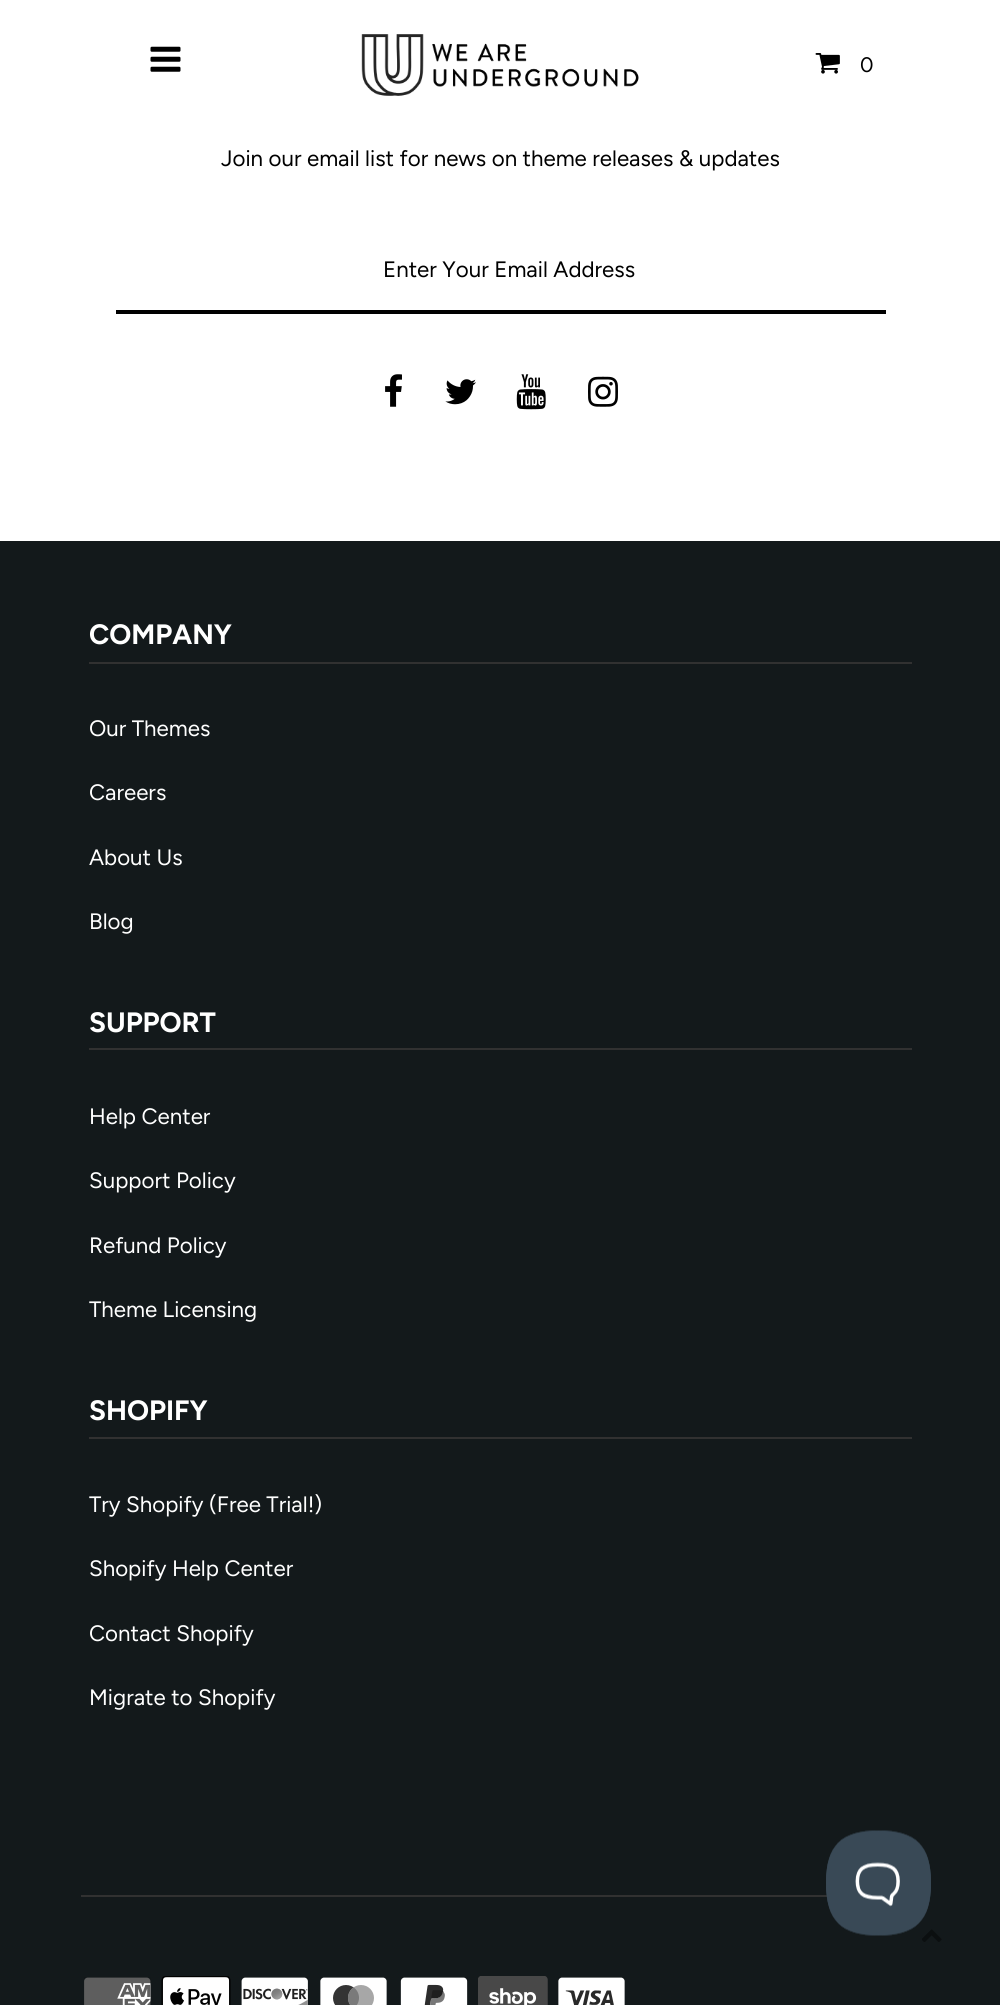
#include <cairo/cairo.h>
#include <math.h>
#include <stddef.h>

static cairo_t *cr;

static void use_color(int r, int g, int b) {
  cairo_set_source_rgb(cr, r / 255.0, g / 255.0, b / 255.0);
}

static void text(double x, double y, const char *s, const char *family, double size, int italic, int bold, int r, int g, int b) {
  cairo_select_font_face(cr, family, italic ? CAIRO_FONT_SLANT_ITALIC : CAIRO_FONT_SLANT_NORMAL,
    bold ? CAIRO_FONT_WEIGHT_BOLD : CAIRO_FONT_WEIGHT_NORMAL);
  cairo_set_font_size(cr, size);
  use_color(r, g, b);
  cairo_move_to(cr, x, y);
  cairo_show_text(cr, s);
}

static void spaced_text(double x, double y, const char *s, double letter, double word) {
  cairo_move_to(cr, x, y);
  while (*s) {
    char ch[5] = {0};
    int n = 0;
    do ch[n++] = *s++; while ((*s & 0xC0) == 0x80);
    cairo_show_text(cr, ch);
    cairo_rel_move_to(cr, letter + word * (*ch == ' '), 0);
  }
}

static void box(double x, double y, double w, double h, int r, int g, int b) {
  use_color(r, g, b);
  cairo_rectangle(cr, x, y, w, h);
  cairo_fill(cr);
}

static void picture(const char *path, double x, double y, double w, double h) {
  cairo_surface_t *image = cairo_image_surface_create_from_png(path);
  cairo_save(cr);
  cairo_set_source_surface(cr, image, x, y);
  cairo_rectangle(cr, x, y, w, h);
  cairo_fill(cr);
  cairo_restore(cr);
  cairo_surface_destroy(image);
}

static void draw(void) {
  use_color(255, 255, 255);
  cairo_paint(cr);
  picture("img_01.png", 150, 46, 31, 26);
  picture("img_02.png", 361, 34, 278, 62);
  picture("img_03.png", 815, 53, 25, 21);
  box(116, 310, 770, 4, 0, 0, 0);
  picture("img_04.png", 385, 374, 17, 33);
  picture("img_05.png", 445, 379, 31, 26);
  picture("img_06.png", 516, 374, 30, 36);
  picture("img_07.png", 588, 376, 30, 31);
  box(0, 541, 1000, 1464, 19, 25, 27);
  box(89, 662, 823, 2, 49, 49, 49);
  box(89, 1048, 823, 2, 49, 49, 49);
  box(89, 1437, 823, 2, 49, 49, 49);
  box(81, 1895, 746, 2, 49, 49, 49);
  picture("img_08.png", 84, 1977, 67, 28);
  picture("img_09.png", 161, 1976, 70, 29);
  picture("img_10.png", 241, 1977, 67, 28);
  picture("img_11.png", 320, 1977, 67, 28);
  picture("img_12.png", 400, 1977, 68, 28);
  picture("img_13.png", 478, 1976, 70, 29);
  picture("img_14.png", 558, 1977, 67, 28);
  picture("img_15.png", 922, 1929, 20, 13);
  picture("img_16.png", 826, 1830, 105, 106);
  cairo_select_font_face(cr, "Figtree", CAIRO_FONT_SLANT_NORMAL, CAIRO_FONT_WEIGHT_NORMAL);
  cairo_set_font_size(cr, 21);
  use_color(0, 0, 0);
  spaced_text(860, 72, "0", 2, 0);
  text(221, 166, "Join our email list for news on theme releases & updates", "Figtree", 22.3, 0, 0, 0, 0, 0);
  text(383, 277, "Enter Your Email Address", "Figtree", 22.3, 0, 0, 0, 0, 0);
  text(89, 644, "COMPANY", "Figtree", 28, 0, 1, 255, 255, 255);
  text(89, 736, "Our Themes", "Figtree", 22.3, 0, 0, 255, 255, 255);
  text(89, 800, "Careers", "Figtree", 22.3, 0, 0, 255, 255, 255);
  text(89, 865, "About Us", "Figtree", 22.3, 0, 0, 255, 255, 255);
  text(89, 929, "Blog", "Figtree", 22.3, 0, 0, 255, 255, 255);
  text(89, 1032, "SUPPORT", "Figtree", 28, 0, 1, 255, 255, 255);
  text(89, 1124, "Help Center", "Figtree", 22.3, 0, 0, 255, 255, 255);
  text(89, 1188, "Support Policy", "Figtree", 22.3, 0, 0, 255, 255, 255);
  text(89, 1253, "Refund Policy", "Figtree", 22.3, 0, 0, 255, 255, 255);
  text(89, 1317, "Theme Licensing", "Figtree", 22.3, 0, 0, 255, 255, 255);
  text(89, 1420, "SHOPIFY", "Figtree", 28, 0, 1, 255, 255, 255);
  text(89, 1512, "Try Shopify (Free Trial!)", "Figtree", 22.3, 0, 0, 255, 255, 255);
  text(89, 1576, "Shopify Help Center", "Figtree", 22.3, 0, 0, 255, 255, 255);
  text(89, 1641, "Contact Shopify", "Figtree", 22.3, 0, 0, 255, 255, 255);
  text(89, 1705, "Migrate to Shopify", "Figtree", 22.3, 0, 0, 255, 255, 255);
}

int main(void) {
  cairo_surface_t *surface = cairo_image_surface_create(CAIRO_FORMAT_RGB24, 1000, 2005);
  cr = cairo_create(surface);
  cairo_font_options_t *options = cairo_font_options_create();
  cairo_font_options_set_hint_metrics(options, CAIRO_HINT_METRICS_OFF);
  cairo_font_options_set_hint_style(options, CAIRO_HINT_STYLE_NONE);
  cairo_set_font_options(cr, options);
  cairo_set_miter_limit(cr, 4);
  draw();
  cairo_surface_write_to_png(surface, "out.png");
  cairo_font_options_destroy(options);
  cairo_destroy(cr);
  cairo_surface_destroy(surface);
  return 0;
}
